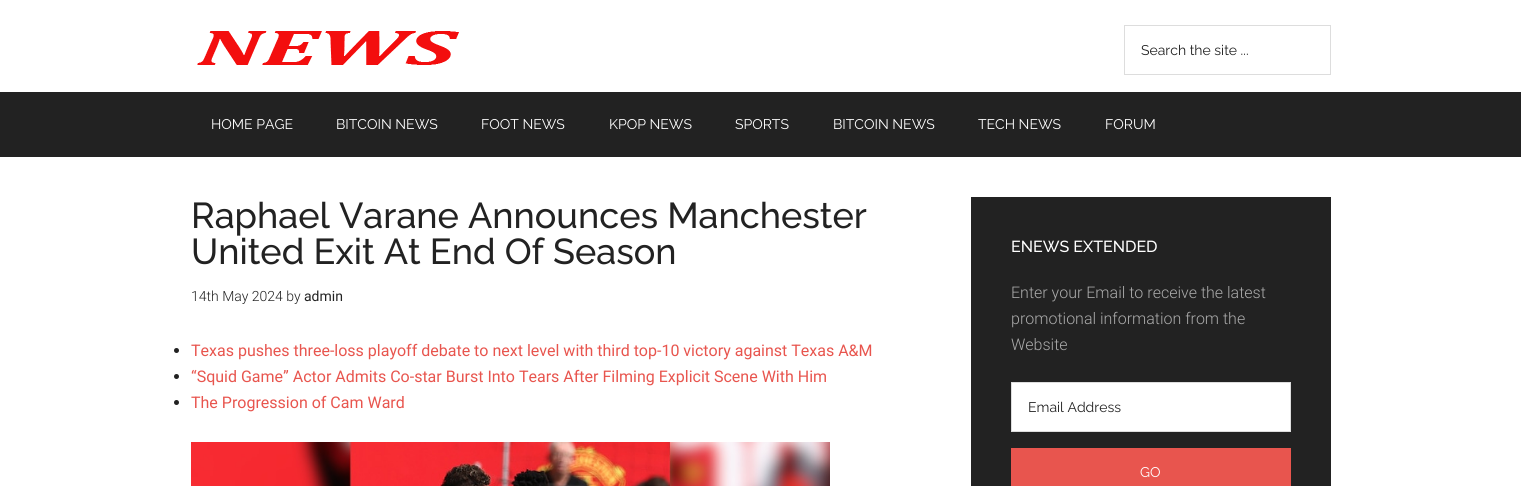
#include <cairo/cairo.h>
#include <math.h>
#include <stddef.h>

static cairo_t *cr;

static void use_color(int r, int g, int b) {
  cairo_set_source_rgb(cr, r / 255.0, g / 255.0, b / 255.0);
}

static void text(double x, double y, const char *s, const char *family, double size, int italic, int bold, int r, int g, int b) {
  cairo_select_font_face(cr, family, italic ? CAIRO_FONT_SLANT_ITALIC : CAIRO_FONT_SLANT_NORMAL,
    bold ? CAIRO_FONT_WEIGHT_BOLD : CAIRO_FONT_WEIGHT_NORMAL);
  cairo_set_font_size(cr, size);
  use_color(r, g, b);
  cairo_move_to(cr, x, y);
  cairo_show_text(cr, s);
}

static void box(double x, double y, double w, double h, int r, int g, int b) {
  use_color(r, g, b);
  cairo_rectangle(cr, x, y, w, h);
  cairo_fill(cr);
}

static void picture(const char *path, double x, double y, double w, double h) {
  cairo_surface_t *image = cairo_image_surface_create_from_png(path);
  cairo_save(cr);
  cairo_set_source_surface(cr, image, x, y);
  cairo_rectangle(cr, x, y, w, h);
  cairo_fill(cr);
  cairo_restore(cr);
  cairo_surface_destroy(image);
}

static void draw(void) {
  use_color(255, 255, 255);
  cairo_paint(cr);
  picture("img_01.png", 197, 31, 262, 34);
  cairo_rectangle(cr, 1124.5, 25.5, 206, 49);
  use_color(221, 221, 221);
  cairo_set_line_width(cr, 1);
  cairo_stroke(cr);
  box(0, 92, 1521, 65, 34, 34, 34);
  cairo_arc(cr, 176.5, 350.5, 2.5, 0, 2 * M_PI);
  cairo_fill(cr);
  cairo_arc(cr, 176.5, 376.5, 2.5, 0, 2 * M_PI);
  cairo_fill(cr);
  cairo_arc(cr, 176.5, 402.5, 2.5, 0, 2 * M_PI);
  cairo_fill(cr);
  picture("img_02.png", 191, 442, 639, 44);
  box(971, 197, 360, 289, 34, 34, 34);
  use_color(255, 255, 255);
  cairo_rectangle(cr, 1011.5, 382.5, 279, 49);
  cairo_fill_preserve(cr);
  use_color(221, 221, 221);
  cairo_stroke(cr);
  box(1011, 448, 280, 38, 232, 85, 78);
  text(1141, 55, "Search the site ...", "Raleway", 14, 0, 0, 34, 34, 34);
  text(211, 129, "HOME PAGE", "Raleway", 14, 0, 0, 255, 255, 255);
  text(336, 129, "BITCOIN NEWS", "Raleway", 14, 0, 0, 255, 255, 255);
  text(481, 129, "FOOT NEWS", "Raleway", 14, 0, 0, 255, 255, 255);
  text(609, 129, "KPOP NEWS", "Raleway", 14, 0, 0, 255, 255, 255);
  text(735, 129, "SPORTS", "Raleway", 14, 0, 0, 255, 255, 255);
  text(833, 129, "BITCOIN NEWS", "Raleway", 14, 0, 0, 255, 255, 255);
  text(978, 129, "TECH NEWS", "Raleway", 14, 0, 0, 255, 255, 255);
  text(1105, 129, "FORUM", "Raleway", 14, 0, 0, 255, 255, 255);
  text(191, 228, "Raphael Varane Announces Manchester", "Raleway Medium", 36, 0, 0, 34, 34, 34);
  text(191, 264, "United Exit At End Of Season", "Raleway Medium", 36, 0, 0, 34, 34, 34);
  text(191, 301, "14th May 2024 by", "Roboto Light", 14, 0, 0, 34, 34, 34);
  text(304, 301, "admin", "Roboto", 14, 0, 0, 34, 34, 34);
  text(191, 356, "Texas pushes three-loss playoff debate to next level with third top-10 victory against Texas A&M", "Roboto", 16, 0, 0, 232, 85, 78);
  text(191, 382, "“Squid Game” Actor Admits Co-star Burst Into Tears After Filming Explicit Scene With Him", "Roboto", 16, 0, 0, 232, 85, 78);
  text(191, 408, "The Progression of Cam Ward", "Roboto", 16, 0, 0, 232, 85, 78);
  text(1011, 252, "ENEWS EXTENDED", "Raleway Medium", 16, 0, 0, 255, 255, 255);
  text(1011, 298, "Enter your Email to receive the latest", "Roboto Light", 16, 0, 0, 170, 170, 170);
  text(1011, 324, "promotional information from the", "Roboto Light", 16, 0, 0, 170, 170, 170);
  text(1011, 350, "Website", "Roboto Light", 16, 0, 0, 170, 170, 170);
  text(1028, 412, "Email Address", "Raleway", 14, 0, 0, 34, 34, 34);
  text(1140, 477, "GO", "Raleway", 14, 0, 0, 255, 255, 255);
}

int main(void) {
  cairo_surface_t *surface = cairo_image_surface_create(CAIRO_FORMAT_RGB24, 1521, 486);
  cr = cairo_create(surface);
  cairo_font_options_t *options = cairo_font_options_create();
  cairo_font_options_set_hint_metrics(options, CAIRO_HINT_METRICS_OFF);
  cairo_font_options_set_hint_style(options, CAIRO_HINT_STYLE_NONE);
  cairo_set_font_options(cr, options);
  cairo_set_miter_limit(cr, 4);
  draw();
  cairo_surface_write_to_png(surface, "out.png");
  cairo_font_options_destroy(options);
  cairo_destroy(cr);
  cairo_surface_destroy(surface);
  return 0;
}
